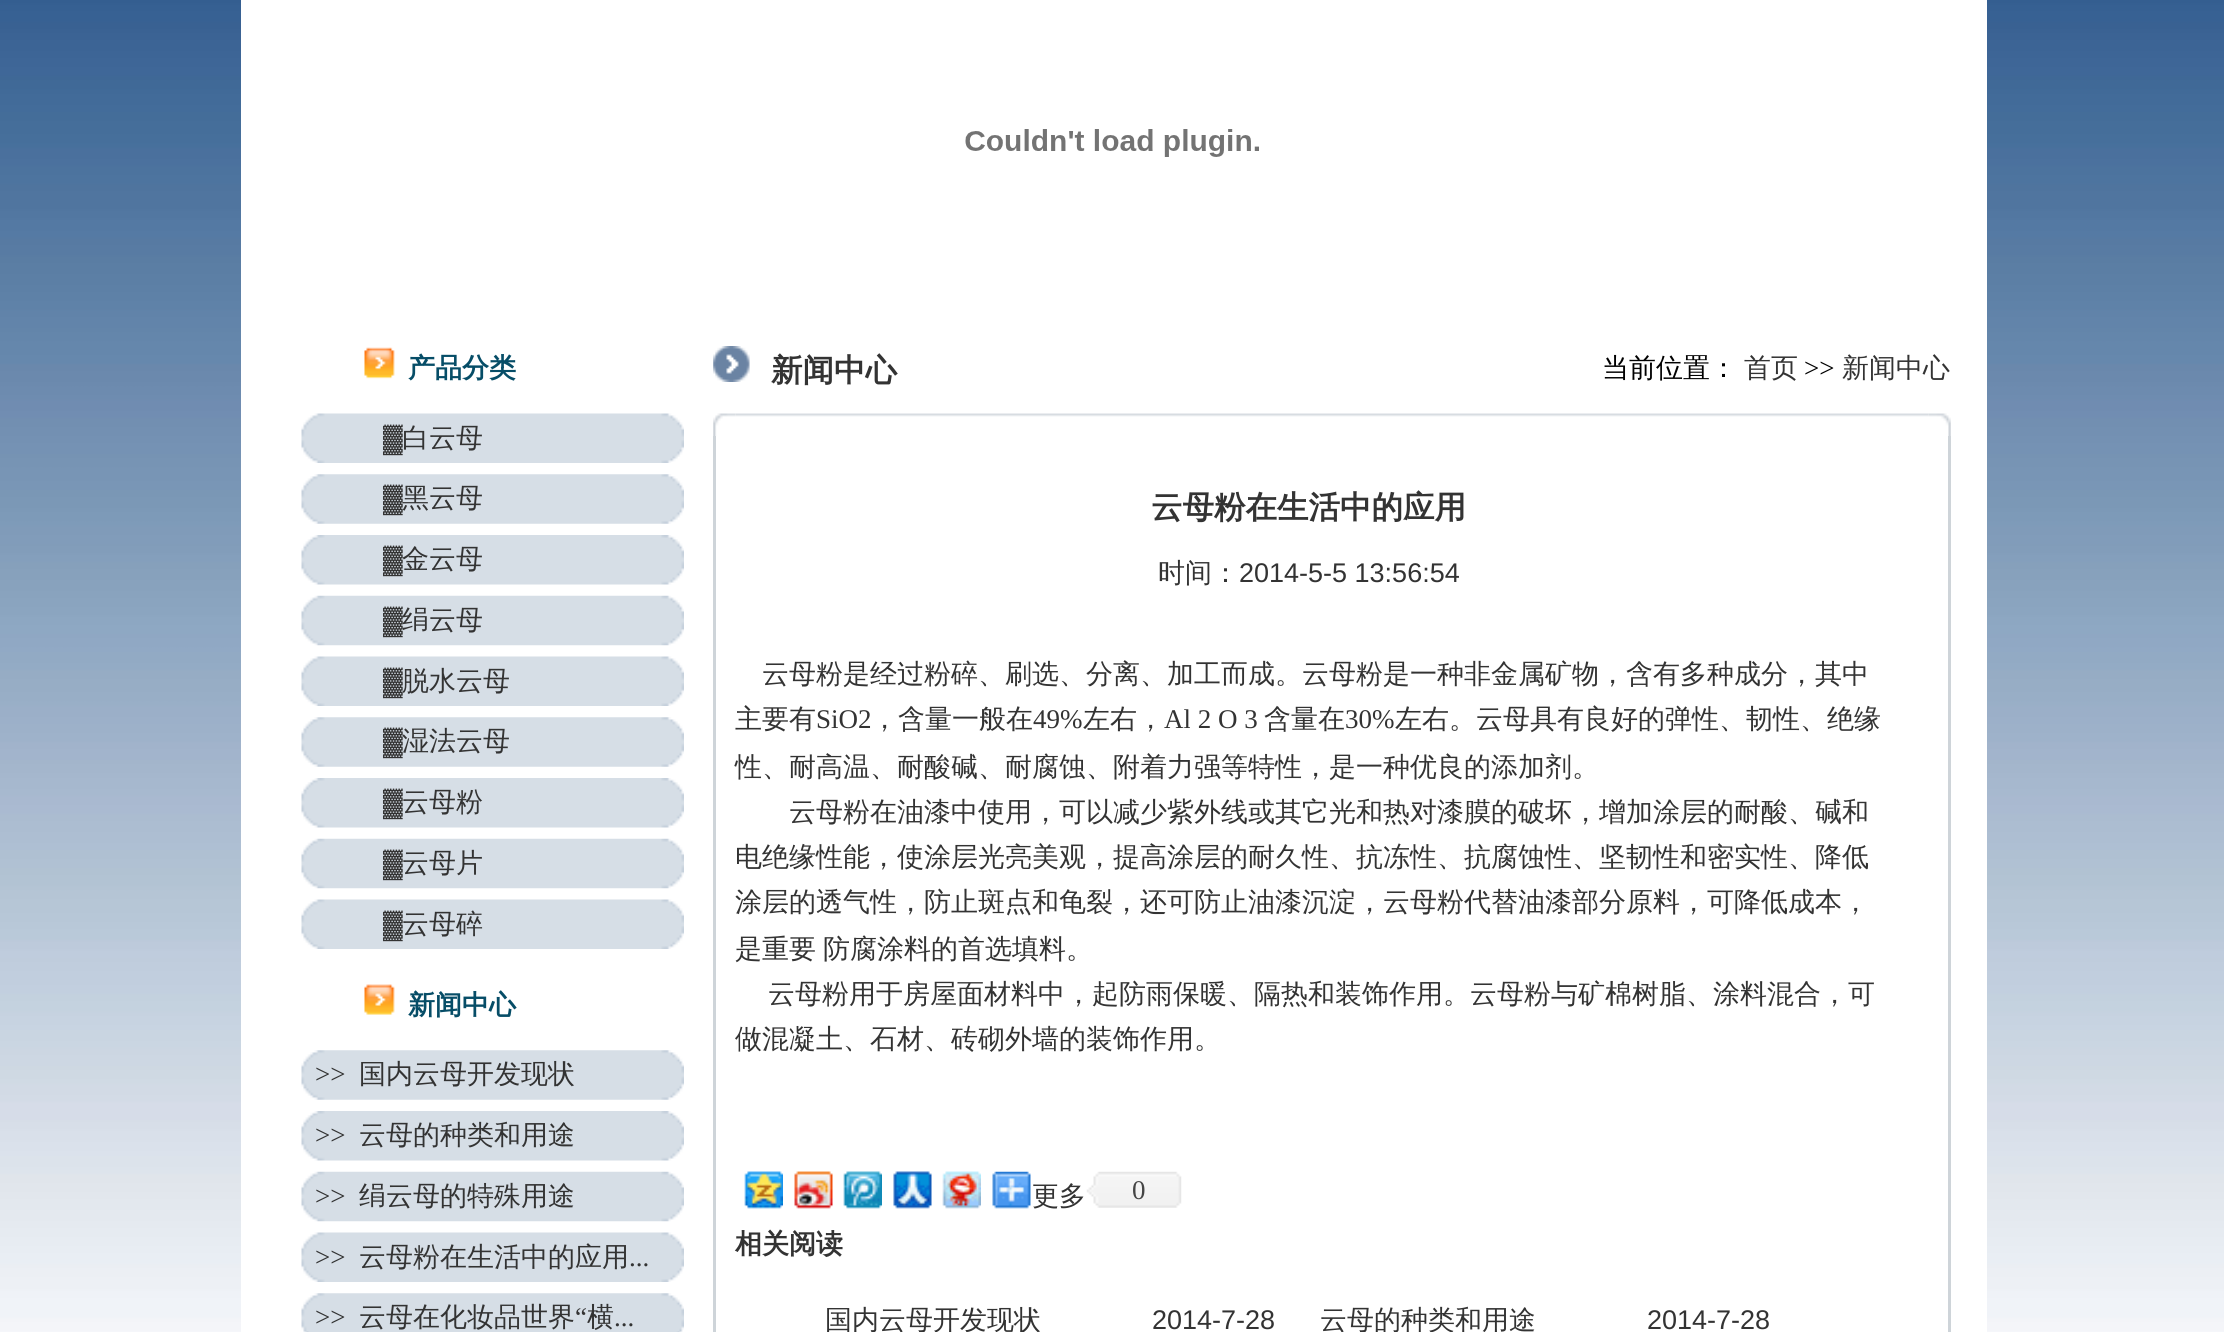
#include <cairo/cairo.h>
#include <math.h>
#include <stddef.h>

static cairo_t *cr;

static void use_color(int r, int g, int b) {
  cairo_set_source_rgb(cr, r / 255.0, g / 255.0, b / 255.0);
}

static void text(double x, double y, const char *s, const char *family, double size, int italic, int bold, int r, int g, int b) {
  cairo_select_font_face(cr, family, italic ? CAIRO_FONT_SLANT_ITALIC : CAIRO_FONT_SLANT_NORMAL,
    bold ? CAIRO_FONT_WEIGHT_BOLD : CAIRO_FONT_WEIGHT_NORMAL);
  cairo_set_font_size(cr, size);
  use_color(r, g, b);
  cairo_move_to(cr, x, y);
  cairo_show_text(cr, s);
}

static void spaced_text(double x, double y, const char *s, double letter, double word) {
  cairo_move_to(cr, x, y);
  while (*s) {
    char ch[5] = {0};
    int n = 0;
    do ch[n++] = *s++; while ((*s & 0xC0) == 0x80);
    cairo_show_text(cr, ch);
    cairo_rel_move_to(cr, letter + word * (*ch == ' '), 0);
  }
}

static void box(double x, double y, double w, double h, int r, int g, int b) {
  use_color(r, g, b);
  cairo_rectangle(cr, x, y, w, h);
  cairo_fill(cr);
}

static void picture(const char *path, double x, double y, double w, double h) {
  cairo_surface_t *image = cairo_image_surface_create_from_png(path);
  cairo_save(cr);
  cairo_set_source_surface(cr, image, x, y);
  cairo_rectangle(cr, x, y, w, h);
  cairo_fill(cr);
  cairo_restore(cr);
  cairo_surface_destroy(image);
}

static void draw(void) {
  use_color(255, 255, 255);
  cairo_paint(cr);
  picture("img_01.png", 0, 0, 2224, 1332);
  box(241, 0, 1746, 1332, 255, 255, 255);
  picture("img_02.png", 965, 129, 294, 28);
  picture("img_03.png", 364, 347, 31, 32);
  picture("img_04.png", 301, 413, 383, 50);
  picture("img_05.png", 301, 474, 383, 50);
  picture("img_06.png", 301, 535, 383, 50);
  picture("img_07.png", 301, 595, 383, 51);
  picture("img_04.png", 301, 656, 383, 50);
  picture("img_05.png", 301, 717, 383, 50);
  picture("img_08.png", 301, 778, 383, 50);
  picture("img_07.png", 301, 838, 383, 51);
  picture("img_04.png", 301, 899, 383, 50);
  picture("img_09.png", 364, 984, 31, 31);
  picture("img_05.png", 301, 1050, 383, 50);
  picture("img_08.png", 301, 1111, 383, 50);
  picture("img_07.png", 301, 1171, 383, 51);
  picture("img_04.png", 301, 1232, 383, 50);
  picture("img_10.png", 301, 1293, 383, 39);
  picture("img_11.png", 713, 346, 37, 36);
  picture("img_13.png", 735, 413, 1194, 4);
  picture("img_12.png", 713, 413, 23, 23);
  picture("img_14.png", 1928, 413, 23, 23);
  box(713, 436, 3, 896, 206, 212, 217);
  picture("img_15.png", 744, 1171, 39, 38);
  picture("img_16.png", 794, 1171, 39, 38);
  picture("img_17.png", 843, 1171, 39, 38);
  picture("img_18.png", 893, 1171, 39, 38);
  picture("img_19.png", 942, 1171, 39, 38);
  picture("img_20.png", 992, 1171, 39, 38);
  picture("img_21.png", 1086, 1171, 96, 37);
  box(1948, 436, 3, 896, 206, 212, 217);
  text(408, 377, "产品分类", "WenQuanYi Zen Hei", 27, 0, 1, 6, 77, 103);
  text(383, 447, "▓", "Liberation Serif", 27, 0, 0, 51, 51, 51);
  text(402, 447, "白云母", "WenQuanYi Zen Hei Medium", 27, 0, 0, 51, 51, 51);
  text(383, 507, "▓", "Liberation Serif", 27, 0, 0, 51, 51, 51);
  text(402, 507, "黑云母", "WenQuanYi Zen Hei Medium", 27, 0, 0, 51, 51, 51);
  text(383, 568, "▓", "Liberation Serif", 27, 0, 0, 51, 51, 51);
  text(402, 568, "金云母", "WenQuanYi Zen Hei Medium", 27, 0, 0, 51, 51, 51);
  text(383, 629, "▓", "Liberation Serif", 27, 0, 0, 51, 51, 51);
  text(402, 629, "绢云母", "WenQuanYi Zen Hei Medium", 27, 0, 0, 51, 51, 51);
  text(383, 690, "▓", "Liberation Serif", 27, 0, 0, 51, 51, 51);
  text(402, 690, "脱水云母", "WenQuanYi Zen Hei Medium", 27, 0, 0, 51, 51, 51);
  text(383, 750, "▓", "Liberation Serif", 27, 0, 0, 51, 51, 51);
  text(402, 750, "湿法云母", "WenQuanYi Zen Hei Medium", 27, 0, 0, 51, 51, 51);
  text(383, 811, "▓", "Liberation Serif", 27, 0, 0, 51, 51, 51);
  text(402, 811, "云母粉", "WenQuanYi Zen Hei Medium", 27, 0, 0, 51, 51, 51);
  text(383, 872, "▓", "Liberation Serif", 27, 0, 0, 51, 51, 51);
  text(402, 872, "云母片", "WenQuanYi Zen Hei Medium", 27, 0, 0, 51, 51, 51);
  text(383, 933, "▓", "Liberation Serif", 27, 0, 0, 51, 51, 51);
  text(402, 933, "云母碎", "WenQuanYi Zen Hei Medium", 27, 0, 0, 51, 51, 51);
  text(408, 1014, "新闻中心", "WenQuanYi Zen Hei", 27, 0, 1, 6, 77, 103);
  text(315, 1083, ">>", "Liberation Serif", 27, 0, 0, 51, 51, 51);
  text(359, 1083, "国内云母开发现状", "WenQuanYi Zen Hei Medium", 27, 0, 0, 51, 51, 51);
  text(315, 1144, ">>", "Liberation Serif", 27, 0, 0, 51, 51, 51);
  text(359, 1144, "云母的种类和用途", "WenQuanYi Zen Hei Medium", 27, 0, 0, 51, 51, 51);
  text(315, 1205, ">>", "Liberation Serif", 27, 0, 0, 51, 51, 51);
  text(359, 1205, "绢云母的特殊用途", "WenQuanYi Zen Hei Medium", 27, 0, 0, 51, 51, 51);
  text(315, 1266, ">>", "Liberation Serif", 27, 0, 0, 51, 51, 51);
  text(359, 1266, "云母粉在生活中的应用", "WenQuanYi Zen Hei Medium", 27, 0, 0, 51, 51, 51);
  text(629, 1266, "...", "Liberation Serif", 27, 0, 0, 51, 51, 51);
  text(315, 1326, ">>", "Liberation Serif", 27, 0, 0, 51, 51, 51);
  text(359, 1326, "云母在化妆品世界", "WenQuanYi Zen Hei Medium", 27, 0, 0, 51, 51, 51);
  text(575, 1326, "“", "Liberation Serif", 27, 0, 0, 51, 51, 51);
  text(587, 1326, "横", "WenQuanYi Zen Hei Medium", 27, 0, 0, 51, 51, 51);
  text(614, 1326, "...", "Liberation Serif", 27, 0, 0, 51, 51, 51);
  text(771, 381, "新闻中心", "WenQuanYi Zen Hei", 31.5, 0, 1, 51, 51, 51);
  text(1602, 377, "当前位置：", "WenQuanYi Zen Hei Medium", 27, 0, 0, 0, 0, 0);
  text(1744, 377, "首页", "WenQuanYi Zen Hei Medium", 27, 0, 0, 51, 51, 51);
  text(1804, 377, ">>", "Liberation Serif", 27, 0, 0, 0, 0, 0);
  text(1842, 377, "新闻中心", "WenQuanYi Zen Hei Medium", 27, 0, 0, 51, 51, 51);
  text(1151, 518, "云母粉在生活中的应用", "WenQuanYi Zen Hei", 31.5, 0, 1, 51, 51, 51);
  text(1158, 582, "时间：", "WenQuanYi Zen Hei Medium", 27, 0, 0, 51, 51, 51);
  text(1239, 582, "2014-5-5 13:56:54", "Liberation Sans", 27, 0, 0, 51, 51, 51);
  text(762, 683, "云母粉是经过粉碎、刷选、分离、加工而成。云母粉是一种非金属矿物，含有多种成分，其中", "WenQuanYi Zen Hei Medium", 27, 0, 0, 51, 51, 51);
  text(735, 728, "主要有", "WenQuanYi Zen Hei Medium", 27, 0, 0, 51, 51, 51);
  text(816, 728, "SiO2", "Liberation Serif", 27, 0, 0, 51, 51, 51);
  text(871, 728, "，含量一般在", "WenQuanYi Zen Hei Medium", 27, 0, 0, 51, 51, 51);
  text(1033, 728, "49%", "Liberation Serif", 27, 0, 0, 51, 51, 51);
  text(1083, 728, "左右，", "WenQuanYi Zen Hei Medium", 27, 0, 0, 51, 51, 51);
  text(1164, 728, "Al 2 O 3", "Liberation Serif", 27, 0, 0, 51, 51, 51);
  text(1264, 728, "含量在", "WenQuanYi Zen Hei Medium", 27, 0, 0, 51, 51, 51);
  text(1345, 728, "30%", "Liberation Serif", 27, 0, 0, 51, 51, 51);
  text(1395, 728, "左右。云母具有良好的弹性、韧性、绝缘", "WenQuanYi Zen Hei Medium", 27, 0, 0, 51, 51, 51);
  box(1190, 727, 1, 1, 255, 255, 255);
  text(735, 776, "性、耐高温、耐酸碱、耐腐蚀、附着力强等特性，是一种优良的添加剂。", "WenQuanYi Zen Hei Medium", 27, 0, 0, 51, 51, 51);
  text(789, 821, "云母粉在油漆中使用，可以减少紫外线或其它光和热对漆膜的破坏，增加涂层的耐酸、碱和", "WenQuanYi Zen Hei Medium", 27, 0, 0, 51, 51, 51);
  text(735, 866, "电绝缘性能，使涂层光亮美观，提高涂层的耐久性、抗冻性、抗腐蚀性、坚韧性和密实性、降低", "WenQuanYi Zen Hei Medium", 27, 0, 0, 51, 51, 51);
  text(735, 911, "涂层的透气性，防止斑点和龟裂，还可防止油漆沉淀，云母粉代替油漆部分原料，可降低成本，", "WenQuanYi Zen Hei Medium", 27, 0, 0, 51, 51, 51);
  spaced_text(735, 958, "是重要 防腐涂料的首选填料。", 0, -1);
  text(768, 1003, "云母粉用于房屋面材料中，起防雨保暖、隔热和装饰作用。云母粉与矿棉树脂、涂料混合，可", "WenQuanYi Zen Hei Medium", 27, 0, 0, 51, 51, 51);
  text(735, 1048, "做混凝土、石材、砖砌外墙的装饰作用。", "WenQuanYi Zen Hei Medium", 27, 0, 0, 51, 51, 51);
  text(1032, 1205, "更多", "WenQuanYi Zen Hei Medium", 27, 0, 0, 51, 51, 51);
  text(1132, 1199, "0", "Liberation Serif", 27, 0, 0, 69, 69, 69);
  text(735, 1253, "相关阅读", "WenQuanYi Zen Hei", 27, 0, 1, 51, 51, 51);
  text(825, 1329, "国内云母开发现状", "WenQuanYi Zen Hei Medium", 27, 0, 0, 51, 51, 51);
  text(1152, 1329, "2014-7-28", "Liberation Sans", 27, 0, 0, 51, 51, 51);
  text(1320, 1329, "云母的种类和用途", "WenQuanYi Zen Hei Medium", 27, 0, 0, 51, 51, 51);
  text(1647, 1329, "2014-7-28", "Liberation Sans", 27, 0, 0, 51, 51, 51);
}

int main(void) {
  cairo_surface_t *surface = cairo_image_surface_create(CAIRO_FORMAT_RGB24, 2224, 1332);
  cr = cairo_create(surface);
  cairo_font_options_t *options = cairo_font_options_create();
  cairo_font_options_set_hint_metrics(options, CAIRO_HINT_METRICS_OFF);
  cairo_font_options_set_hint_style(options, CAIRO_HINT_STYLE_NONE);
  cairo_set_font_options(cr, options);
  cairo_set_miter_limit(cr, 4);
  draw();
  cairo_surface_write_to_png(surface, "out.png");
  cairo_font_options_destroy(options);
  cairo_destroy(cr);
  cairo_surface_destroy(surface);
  return 0;
}
